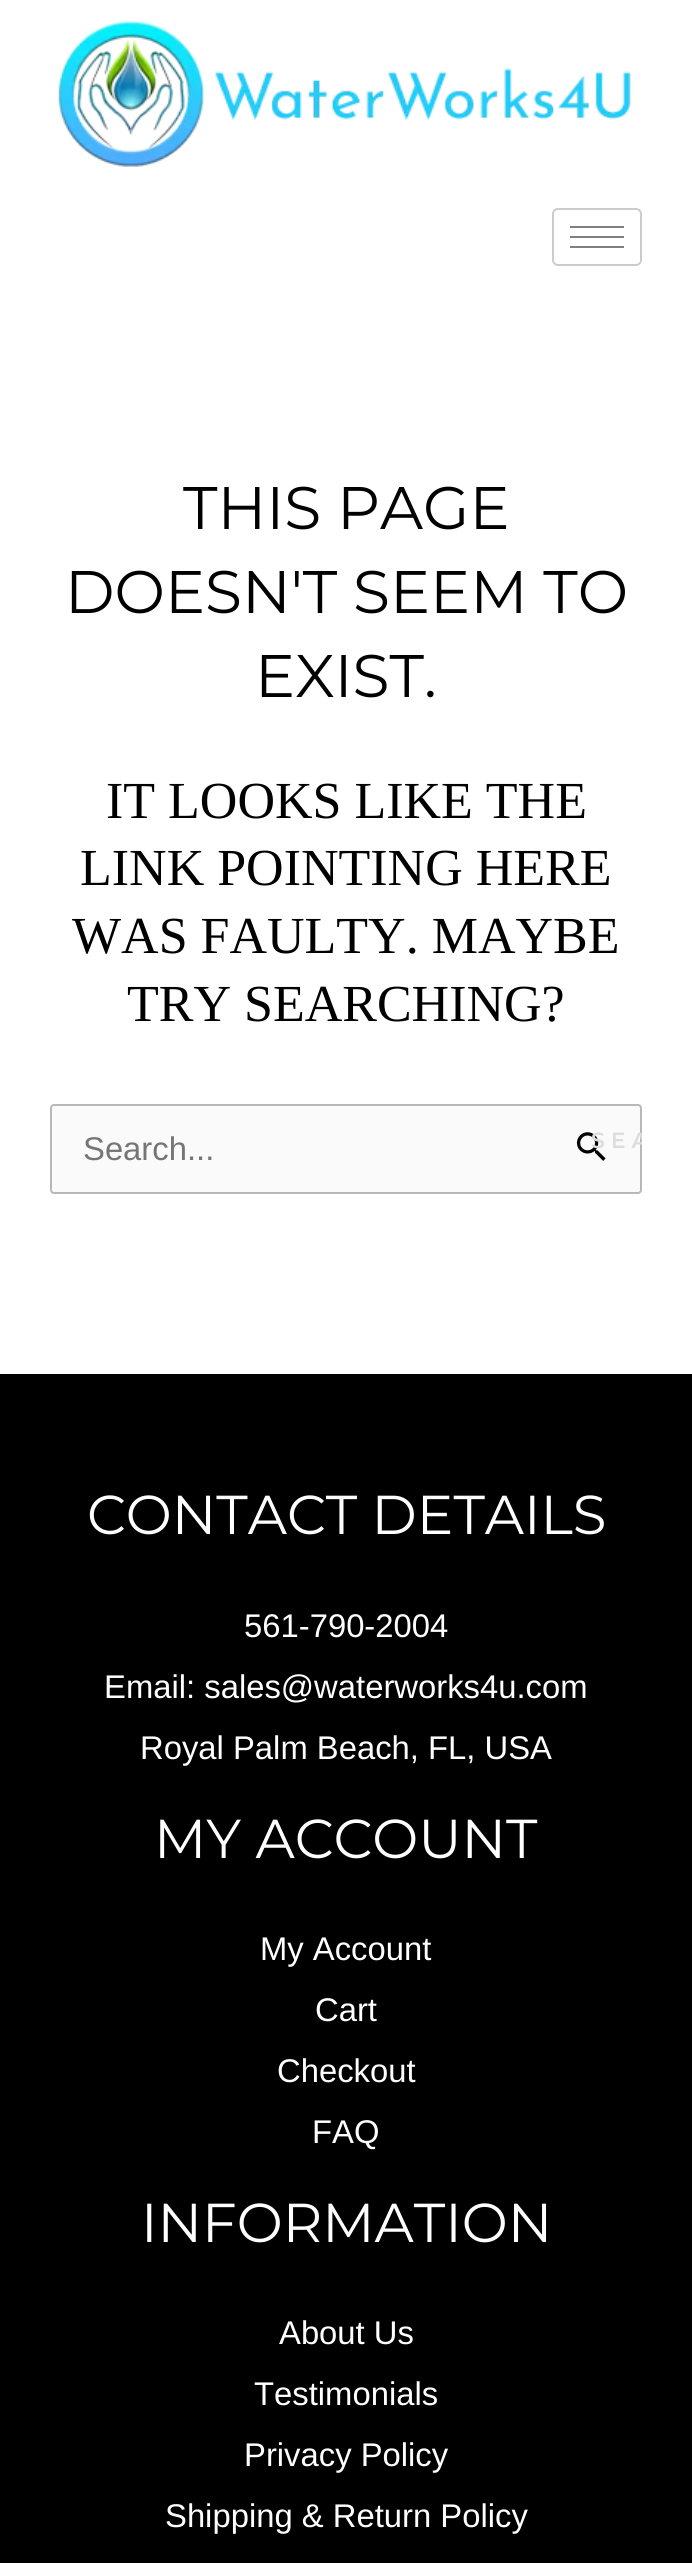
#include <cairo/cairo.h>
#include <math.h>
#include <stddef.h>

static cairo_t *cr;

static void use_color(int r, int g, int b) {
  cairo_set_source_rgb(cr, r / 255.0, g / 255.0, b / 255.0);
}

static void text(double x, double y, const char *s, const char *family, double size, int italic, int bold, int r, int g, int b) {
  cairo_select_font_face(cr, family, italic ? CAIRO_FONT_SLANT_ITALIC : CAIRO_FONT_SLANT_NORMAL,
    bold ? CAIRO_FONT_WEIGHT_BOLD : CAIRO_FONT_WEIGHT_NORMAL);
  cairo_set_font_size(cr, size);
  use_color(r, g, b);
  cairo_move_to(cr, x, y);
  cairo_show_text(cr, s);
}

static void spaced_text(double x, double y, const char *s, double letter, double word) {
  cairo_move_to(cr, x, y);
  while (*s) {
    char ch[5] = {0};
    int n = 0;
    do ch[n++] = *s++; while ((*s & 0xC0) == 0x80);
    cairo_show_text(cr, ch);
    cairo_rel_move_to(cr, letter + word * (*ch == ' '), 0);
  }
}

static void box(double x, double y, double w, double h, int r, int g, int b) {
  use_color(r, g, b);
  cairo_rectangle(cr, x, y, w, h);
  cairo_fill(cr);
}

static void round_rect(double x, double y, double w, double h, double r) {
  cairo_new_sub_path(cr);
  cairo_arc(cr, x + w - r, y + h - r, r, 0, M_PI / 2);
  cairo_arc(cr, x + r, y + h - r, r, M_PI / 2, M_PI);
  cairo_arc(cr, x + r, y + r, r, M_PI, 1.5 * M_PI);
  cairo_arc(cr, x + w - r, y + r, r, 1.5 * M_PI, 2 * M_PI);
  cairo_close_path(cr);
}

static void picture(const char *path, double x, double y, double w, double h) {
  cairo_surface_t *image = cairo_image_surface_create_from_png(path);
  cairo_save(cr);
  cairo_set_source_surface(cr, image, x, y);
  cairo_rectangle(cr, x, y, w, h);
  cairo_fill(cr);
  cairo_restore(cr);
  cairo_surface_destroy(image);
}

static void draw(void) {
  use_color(255, 255, 255);
  cairo_paint(cr);
  picture("img_01.png", 58, 21, 573, 146);
  round_rect(553, 209, 88, 56, 5);
  use_color(204, 204, 204);
  cairo_stroke(cr);
  box(570, 226, 54, 2, 128, 128, 128);
  box(570, 236, 54, 2, 128, 128, 128);
  box(570, 246, 54, 2, 128, 128, 128);
  use_color(250, 250, 250);
  round_rect(51, 1105, 590, 88, 3);
  cairo_fill_preserve(cr);
  use_color(184, 184, 184);
  cairo_stroke(cr);
  picture("img_02.png", 576, 1132, 30, 29);
  box(0, 1374, 692, 1189, 0, 0, 0);
  text(183, 529, "THIS PAGE", "Montserrat", 60, 0, 0, 0, 0, 0);
  text(65, 613, "DOESN'T SEEM TO", "Montserrat", 60, 0, 0, 0, 0, 0);
  text(255, 697, "EXIST.", "Montserrat", 60, 0, 0, 0, 0, 0);
  text(106, 818, "IT LOOKS LIKE THE", "Liberation Serif", 52, 0, 0, 0, 0, 0);
  text(80, 885, "LINK POINTING HERE", "Liberation Serif", 52, 0, 0, 0, 0, 0);
  text(72, 953, "WAS FAULTY. MAYBE", "Liberation Serif", 52, 0, 0, 0, 0, 0);
  text(127, 1021, "TRY SEARCHING?", "Liberation Serif", 52, 0, 0, 0, 0, 0);
  text(83, 1160, "Search...", "Liberation Sans", 32.8, 0, 0, 117, 117, 117);
  cairo_save(cr);
  round_rect(552, 1104, 90, 74, 4);
  cairo_clip(cr);
  cairo_select_font_face(cr, "Montserrat SemiBold", CAIRO_FONT_SLANT_NORMAL, CAIRO_FONT_WEIGHT_NORMAL);
  cairo_set_font_size(cr, 22);
  use_color(221, 221, 221);
  spaced_text(591, 1148, "SEA", 6, 0);
  cairo_restore(cr);
  text(87, 1534, "CONTACT DETAILS", "Montserrat", 54.75, 0, 0, 255, 255, 255);
  text(244, 1637, "561-790-2004", "Liberation Sans", 32.8, 0, 0, 255, 255, 255);
  text(104, 1698, "Email: sales@waterworks4u.com", "Liberation Sans", 32.8, 0, 0, 255, 255, 255);
  text(140, 1759, "Royal Palm Beach, FL, USA", "Liberation Sans", 32.8, 0, 0, 255, 255, 255);
  text(154, 1858, "MY ACCOUNT", "Montserrat", 54.75, 0, 0, 255, 255, 255);
  text(260, 1960, "My Account", "Liberation Sans", 32.8, 0, 0, 255, 255, 255);
  text(315, 2021, "Cart", "Liberation Sans", 32.8, 0, 0, 255, 255, 255);
  text(277, 2082, "Checkout", "Liberation Sans", 32.8, 0, 0, 255, 255, 255);
  text(312, 2143, "FAQ", "Liberation Sans", 32.8, 0, 0, 255, 255, 255);
  text(141, 2242, "INFORMATION", "Montserrat", 54.75, 0, 0, 255, 255, 255);
  text(279, 2344, "About Us", "Liberation Sans", 32.8, 0, 0, 255, 255, 255);
  text(254, 2405, "Testimonials", "Liberation Sans", 32.8, 0, 0, 255, 255, 255);
  text(244, 2466, "Privacy Policy", "Liberation Sans", 32.8, 0, 0, 255, 255, 255);
  text(165, 2527, "Shipping & Return Policy", "Liberation Sans", 32.8, 0, 0, 255, 255, 255);
}

int main(void) {
  cairo_surface_t *surface = cairo_image_surface_create(CAIRO_FORMAT_RGB24, 692, 2563);
  cr = cairo_create(surface);
  cairo_font_options_t *options = cairo_font_options_create();
  cairo_font_options_set_hint_metrics(options, CAIRO_HINT_METRICS_OFF);
  cairo_font_options_set_hint_style(options, CAIRO_HINT_STYLE_NONE);
  cairo_set_font_options(cr, options);
  cairo_set_miter_limit(cr, 4);
  draw();
  cairo_surface_write_to_png(surface, "out.png");
  cairo_font_options_destroy(options);
  cairo_destroy(cr);
  cairo_surface_destroy(surface);
  return 0;
}
